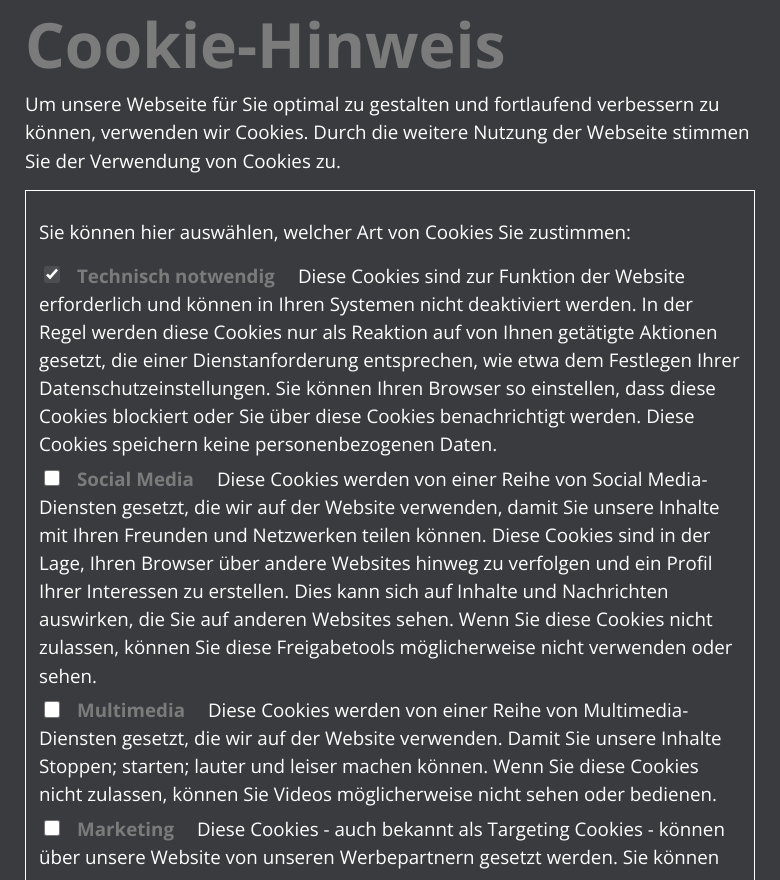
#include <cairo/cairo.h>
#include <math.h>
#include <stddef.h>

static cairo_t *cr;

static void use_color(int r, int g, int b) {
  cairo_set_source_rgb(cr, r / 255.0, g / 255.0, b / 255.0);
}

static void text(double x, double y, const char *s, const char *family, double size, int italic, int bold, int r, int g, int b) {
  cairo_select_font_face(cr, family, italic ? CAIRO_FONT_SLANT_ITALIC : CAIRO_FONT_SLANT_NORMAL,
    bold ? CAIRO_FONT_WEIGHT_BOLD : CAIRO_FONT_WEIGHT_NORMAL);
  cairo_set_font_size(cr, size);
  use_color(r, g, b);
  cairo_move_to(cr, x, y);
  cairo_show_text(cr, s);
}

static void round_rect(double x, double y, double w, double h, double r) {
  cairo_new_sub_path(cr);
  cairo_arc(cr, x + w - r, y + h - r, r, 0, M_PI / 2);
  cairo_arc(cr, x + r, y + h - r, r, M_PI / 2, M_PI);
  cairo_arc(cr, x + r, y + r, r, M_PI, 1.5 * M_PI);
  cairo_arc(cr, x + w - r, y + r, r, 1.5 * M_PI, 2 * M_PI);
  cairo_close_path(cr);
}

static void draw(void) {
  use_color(58, 59, 63);
  cairo_paint(cr);
  cairo_rectangle(cr, 25.5, 190.5, 729, 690);
  use_color(255, 255, 255);
  cairo_set_line_width(cr, 1);
  cairo_stroke(cr);
  use_color(76, 77, 80);
  round_rect(44, 266, 16, 17, 2.5);
  cairo_fill(cr);
  cairo_new_path(cr);
  cairo_move_to(cr, 47, 274.5);
  cairo_line_to(cr, 50, 277.5);
  cairo_line_to(cr, 57, 269.5);
  use_color(255, 255, 255);
  cairo_set_line_width(cr, 2.6);
  cairo_stroke(cr);
  round_rect(44.5, 470.5, 15, 15, 2);
  cairo_fill_preserve(cr);
  use_color(118, 118, 118);
  cairo_set_line_width(cr, 1);
  cairo_stroke(cr);
  use_color(255, 255, 255);
  round_rect(44.5, 701.5, 15, 16, 2);
  cairo_fill_preserve(cr);
  use_color(118, 118, 118);
  cairo_stroke(cr);
  use_color(255, 255, 255);
  round_rect(44.5, 820.5, 15, 15, 2);
  cairo_fill_preserve(cr);
  use_color(118, 118, 118);
  cairo_stroke(cr);
  text(25, 68, "Cookie-Hinweis", "Open Sans", 62.5, 0, 1, 123, 123, 123);
  text(25, 111, "Um unsere Webseite für Sie optimal zu gestalten und fortlaufend verbessern zu", "Open Sans", 18.75, 0, 0, 255, 255, 255);
  text(25, 139, "können, verwenden wir Cookies. Durch die weitere Nutzung der Webseite stimmen", "Open Sans", 18.75, 0, 0, 255, 255, 255);
  text(25, 168, "Sie der Verwendung von Cookies zu.", "Open Sans", 18.75, 0, 0, 255, 255, 255);
  text(39, 239, "Sie können hier auswählen, welcher Art von Cookies Sie zustimmen:", "Open Sans", 18.75, 0, 0, 255, 255, 255);
  text(77, 283, "Technisch notwendig", "Open Sans", 18.75, 0, 1, 123, 123, 123);
  text(298, 283, "Diese Cookies sind zur Funktion der Website", "Open Sans", 18.75, 0, 0, 255, 255, 255);
  text(39, 311, "erforderlich und können in Ihren Systemen nicht deaktiviert werden. In der", "Open Sans", 18.75, 0, 0, 255, 255, 255);
  text(39, 339, "Regel werden diese Cookies nur als Reaktion auf von Ihnen getätigte Aktionen", "Open Sans", 18.75, 0, 0, 255, 255, 255);
  text(39, 367, "gesetzt, die einer Dienstanforderung entsprechen, wie etwa dem Festlegen Ihrer", "Open Sans", 18.75, 0, 0, 255, 255, 255);
  text(39, 395, "Datenschutzeinstellungen. Sie können Ihren Browser so einstellen, dass diese", "Open Sans", 18.75, 0, 0, 255, 255, 255);
  text(39, 423, "Cookies blockiert oder Sie über diese Cookies benachrichtigt werden. Diese", "Open Sans", 18.75, 0, 0, 255, 255, 255);
  text(39, 451, "Cookies speichern keine personenbezogenen Daten.", "Open Sans", 18.75, 0, 0, 255, 255, 255);
  text(77, 486, "Social Media", "Open Sans", 18.75, 0, 1, 123, 123, 123);
  text(217, 486, "Diese Cookies werden von einer Reihe von Social Media-", "Open Sans", 18.75, 0, 0, 255, 255, 255);
  text(39, 514, "Diensten gesetzt, die wir auf der Website verwenden, damit Sie unsere Inhalte", "Open Sans", 18.75, 0, 0, 255, 255, 255);
  text(39, 542, "mit Ihren Freunden und Netzwerken teilen können. Diese Cookies sind in der", "Open Sans", 18.75, 0, 0, 255, 255, 255);
  text(39, 570, "Lage, Ihren Browser über andere Websites hinweg zu verfolgen und ein Profil", "Open Sans", 18.75, 0, 0, 255, 255, 255);
  text(39, 598, "Ihrer Interessen zu erstellen. Dies kann sich auf Inhalte und Nachrichten", "Open Sans", 18.75, 0, 0, 255, 255, 255);
  text(39, 626, "auswirken, die Sie auf anderen Websites sehen. Wenn Sie diese Cookies nicht", "Open Sans", 18.75, 0, 0, 255, 255, 255);
  text(39, 654, "zulassen, können Sie diese Freigabetools möglicherweise nicht verwenden oder", "Open Sans", 18.75, 0, 0, 255, 255, 255);
  text(39, 683, "sehen.", "Open Sans", 18.75, 0, 0, 255, 255, 255);
  text(77, 717, "Multimedia", "Open Sans", 18.75, 0, 1, 123, 123, 123);
  text(208, 717, "Diese Cookies werden von einer Reihe von Multimedia-", "Open Sans", 18.75, 0, 0, 255, 255, 255);
  text(39, 745, "Diensten gesetzt, die wir auf der Website verwenden. Damit Sie unsere Inhalte", "Open Sans", 18.75, 0, 0, 255, 255, 255);
  text(39, 773, "Stoppen; starten; lauter und leiser machen können. Wenn Sie diese Cookies", "Open Sans", 18.75, 0, 0, 255, 255, 255);
  text(39, 801, "nicht zulassen, können Sie Videos möglicherweise nicht sehen oder bedienen.", "Open Sans", 18.75, 0, 0, 255, 255, 255);
  text(77, 836, "Marketing", "Open Sans", 18.75, 0, 1, 123, 123, 123);
  text(197, 836, "Diese Cookies - auch bekannt als Targeting Cookies - können", "Open Sans", 18.75, 0, 0, 255, 255, 255);
  text(39, 864, "über unsere Website von unseren Werbepartnern gesetzt werden. Sie können", "Open Sans", 18.75, 0, 0, 255, 255, 255);
}

int main(void) {
  cairo_surface_t *surface = cairo_image_surface_create(CAIRO_FORMAT_RGB24, 780, 880);
  cr = cairo_create(surface);
  cairo_font_options_t *options = cairo_font_options_create();
  cairo_font_options_set_hint_metrics(options, CAIRO_HINT_METRICS_OFF);
  cairo_font_options_set_hint_style(options, CAIRO_HINT_STYLE_NONE);
  cairo_set_font_options(cr, options);
  cairo_set_miter_limit(cr, 4);
  draw();
  cairo_surface_write_to_png(surface, "out.png");
  cairo_font_options_destroy(options);
  cairo_destroy(cr);
  cairo_surface_destroy(surface);
  return 0;
}
